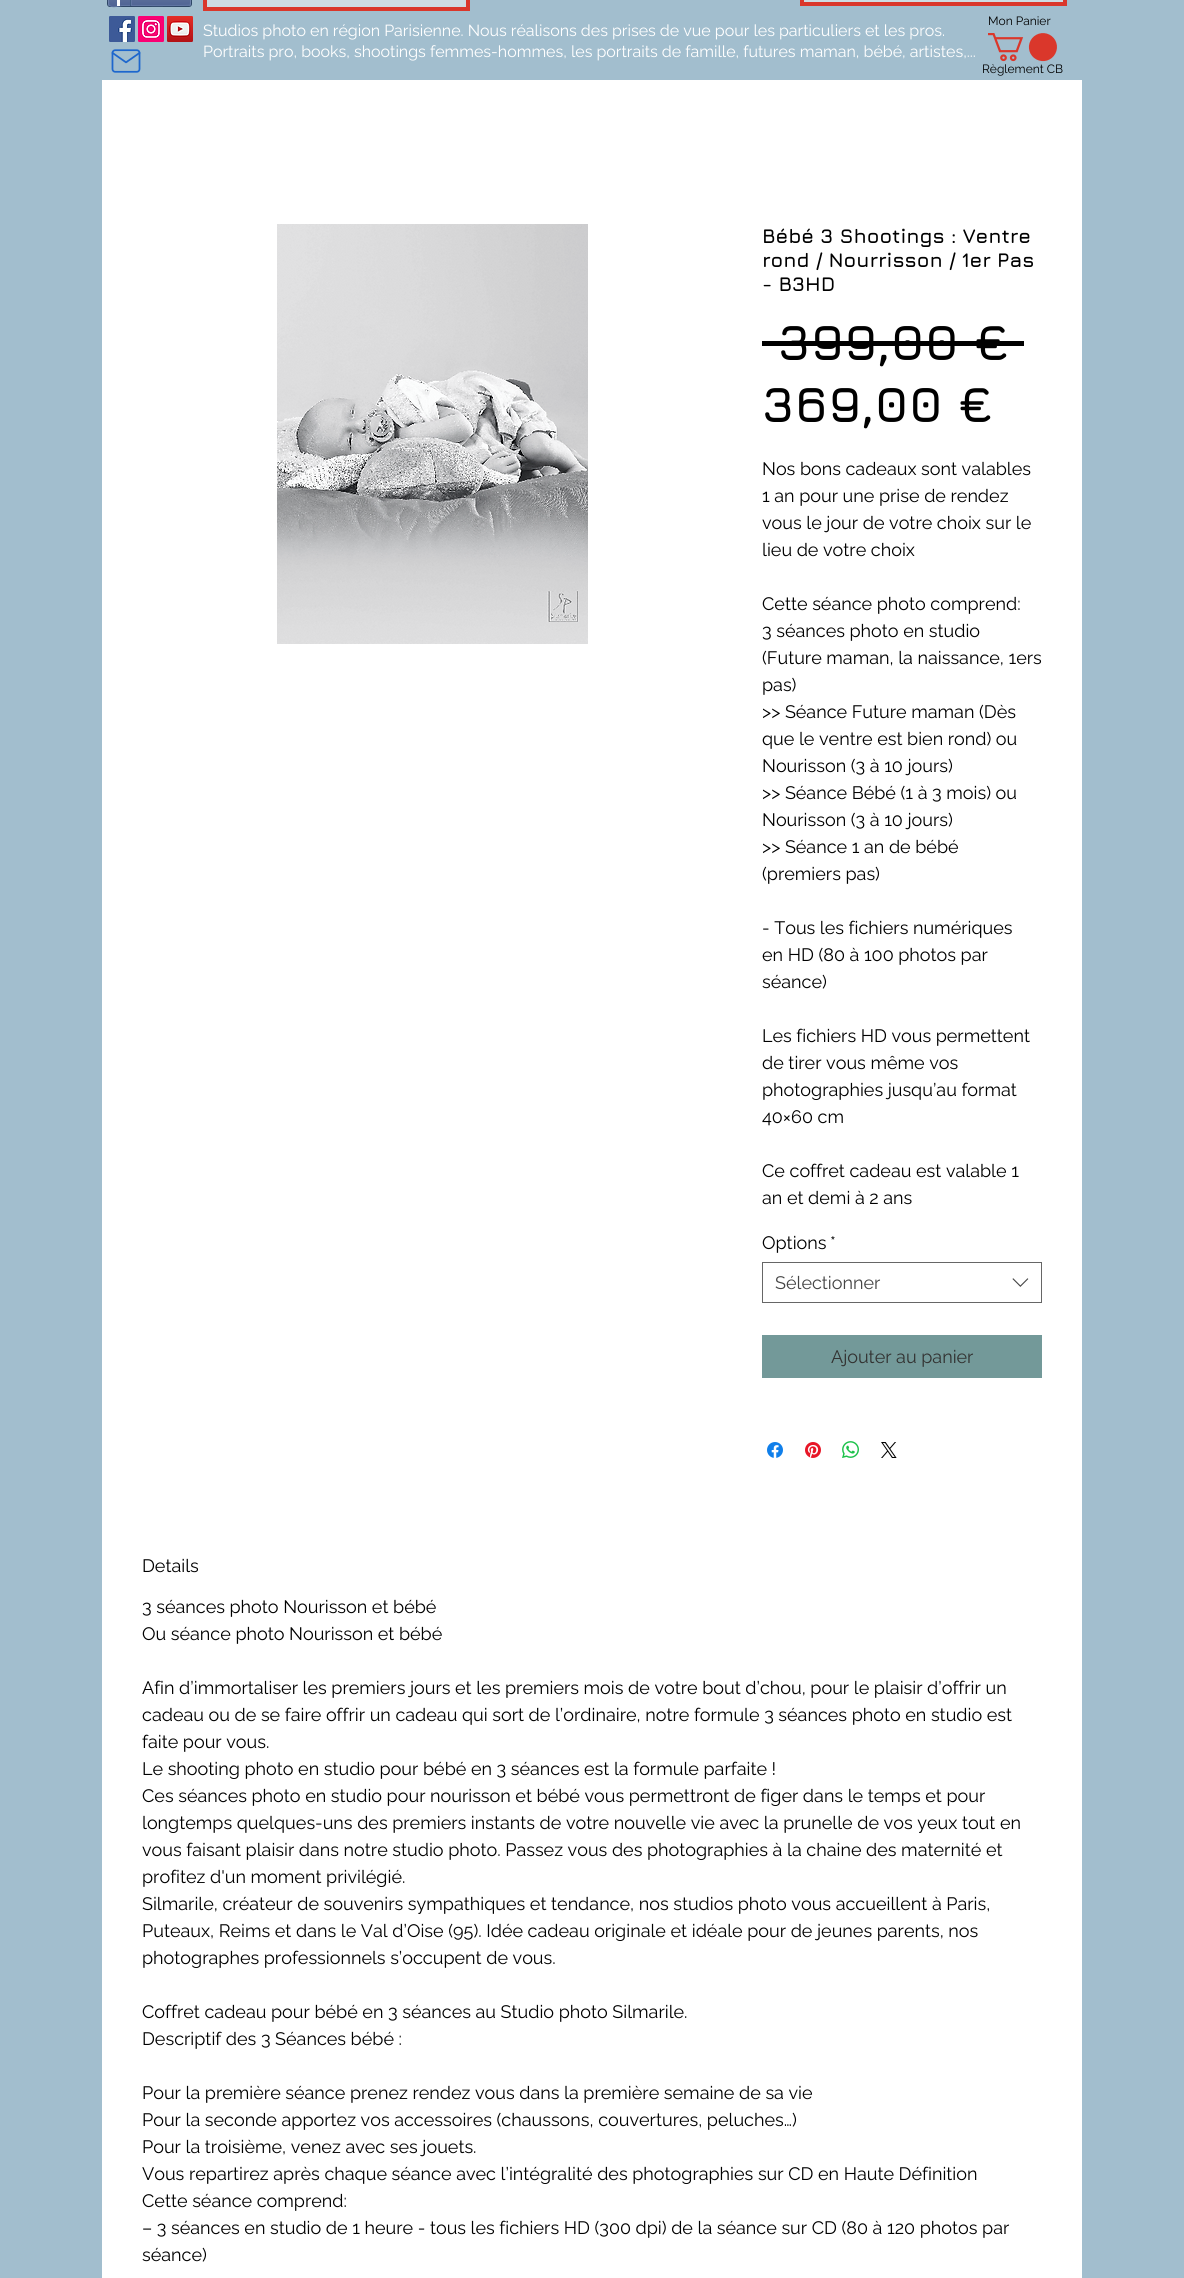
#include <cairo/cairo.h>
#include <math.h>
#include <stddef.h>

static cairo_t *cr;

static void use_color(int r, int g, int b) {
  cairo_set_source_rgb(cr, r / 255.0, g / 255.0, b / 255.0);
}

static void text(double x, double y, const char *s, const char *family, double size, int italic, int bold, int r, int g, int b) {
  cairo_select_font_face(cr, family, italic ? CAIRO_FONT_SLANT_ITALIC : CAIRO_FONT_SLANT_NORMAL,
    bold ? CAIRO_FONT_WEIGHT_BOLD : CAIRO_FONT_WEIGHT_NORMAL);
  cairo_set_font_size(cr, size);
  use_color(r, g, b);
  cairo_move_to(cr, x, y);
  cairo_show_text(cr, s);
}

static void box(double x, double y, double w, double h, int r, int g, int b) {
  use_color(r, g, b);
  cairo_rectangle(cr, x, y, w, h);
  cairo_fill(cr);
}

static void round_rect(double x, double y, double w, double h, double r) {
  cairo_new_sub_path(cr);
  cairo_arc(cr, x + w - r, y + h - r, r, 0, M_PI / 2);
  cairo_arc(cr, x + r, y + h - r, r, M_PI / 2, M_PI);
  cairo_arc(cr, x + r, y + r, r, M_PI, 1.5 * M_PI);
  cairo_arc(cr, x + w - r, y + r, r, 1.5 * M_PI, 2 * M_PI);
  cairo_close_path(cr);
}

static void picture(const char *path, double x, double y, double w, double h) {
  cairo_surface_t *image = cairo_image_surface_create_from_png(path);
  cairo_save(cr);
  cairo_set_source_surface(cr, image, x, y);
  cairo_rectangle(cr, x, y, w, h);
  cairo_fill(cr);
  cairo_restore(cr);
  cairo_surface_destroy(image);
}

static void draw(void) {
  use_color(162, 190, 206);
  cairo_paint(cr);
  round_rect(107.5, -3.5, 84, 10, 2.5);
  use_color(45, 69, 101);
  cairo_set_line_width(cr, 1);
  cairo_stroke(cr);
  picture("img_01.png", 108, 0, 83, 6);
  cairo_new_path(cr);
  cairo_move_to(cr, 190, -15);
  cairo_curve_to(cr, 191, -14.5, 191, 4.5, 190, 5);
  use_color(111, 131, 173);
  cairo_stroke(cr);
  cairo_new_path(cr);
  cairo_move_to(cr, 190, 5);
  cairo_curve_to(cr, 189, 6, 130, 5.5, 123, 5.5);
  cairo_curve_to(cr, 118.5, 5.5, 112.5, 8.5, 109, 5);
  use_color(97, 118, 163);
  cairo_stroke(cr);
  cairo_new_path(cr);
  cairo_move_to(cr, 109, 5);
  cairo_curve_to(cr, 108, 4.5, 108, -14.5, 109, -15);
  use_color(111, 131, 173);
  cairo_stroke(cr);
  box(117, 0, 3, 6, 255, 255, 255);
  box(130, 0, 1, 6, 66, 94, 133);
  box(131, 0, 1, 5, 97, 118, 163);
  use_color(206, 220, 227);
  cairo_rectangle(cr, 205, -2, 263, 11);
  cairo_fill_preserve(cr);
  use_color(218, 55, 43);
  cairo_set_line_width(cr, 4);
  cairo_stroke(cr);
  use_color(206, 220, 227);
  cairo_rectangle(cr, 802, -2, 263, 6);
  cairo_fill_preserve(cr);
  use_color(218, 55, 43);
  cairo_stroke(cr);
  picture("img_02.png", 109, 16, 26, 26);
  picture("img_03.png", 138, 16, 26, 26);
  picture("img_04.png", 167, 16, 26, 26);
  picture("img_05.png", 111, 49, 30, 24);
  picture("img_06.png", 988, 33, 69, 29);
  box(102, 80, 980, 2198, 255, 255, 255);
  picture("img_07.png", 277, 224, 311, 420);
  box(762, 341, 262, 5, 0, 0, 0);
  cairo_rectangle(cr, 762.5, 1262.5, 279, 40);
  use_color(102, 102, 102);
  cairo_set_line_width(cr, 1);
  cairo_stroke(cr);
  picture("img_08.png", 1012, 1278, 17, 9);
  box(762, 1335, 280, 43, 115, 153, 153);
  picture("img_09.png", 767, 1442, 16, 16);
  picture("img_10.png", 805, 1442, 16, 16);
  picture("img_11.png", 842, 1441, 17, 17);
  picture("img_12.png", 881, 1442, 16, 16);
  text(988, 25, "Mon Panier", "Raleway", 12, 0, 0, 0, 0, 0);
  text(203, 36, "Studios photo en région Parisienne. Nous réalisons des prises de vue pour les particuliers et les pros.", "Raleway", 16, 0, 0, 255, 255, 255);
  text(203, 57, "Portraits pro, books, shootings femmes-hommes, les portraits de famille, futures maman, bébé, artistes,...", "Raleway", 16, 0, 0, 255, 255, 255);
  text(982, 73, "Règlement CB", "Raleway", 12, 0, 0, 0, 0, 0);
  text(762, 243, "Bébé 3 Shootings : Ventre", "Jura", 20, 0, 1, 0, 0, 0);
  text(762, 267, "rond / Nourrisson / 1er Pas", "Jura", 20, 0, 1, 0, 0, 0);
  text(762, 291, "- B3HD", "Jura", 20, 0, 1, 0, 0, 0);
  text(778, 360, "399,00 €", "Jura", 50, 0, 1, 0, 0, 0);
  text(762, 422, "369,00 €", "Jura", 50, 0, 1, 0, 0, 0);
  text(762, 475, "Nos bons cadeaux sont valables", "Raleway", 18, 0, 0, 0, 0, 0);
  text(762, 502, "1 an pour une prise de rendez", "Raleway", 18, 0, 0, 0, 0, 0);
  text(762, 529, "vous le jour de votre choix sur le", "Raleway", 18, 0, 0, 0, 0, 0);
  text(762, 556, "lieu de votre choix", "Raleway", 18, 0, 0, 0, 0, 0);
  text(762, 610, "Cette séance photo comprend:", "Raleway", 18, 0, 0, 0, 0, 0);
  text(762, 637, "3 séances photo en studio", "Raleway", 18, 0, 0, 0, 0, 0);
  text(762, 664, "(Future maman, la naissance, 1ers", "Raleway", 18, 0, 0, 0, 0, 0);
  text(762, 691, "pas)", "Raleway", 18, 0, 0, 0, 0, 0);
  text(762, 718, ">> Séance Future maman (Dès", "Raleway", 18, 0, 0, 0, 0, 0);
  text(762, 745, "que le ventre est bien rond) ou", "Raleway", 18, 0, 0, 0, 0, 0);
  text(762, 772, "Nourisson (3 à 10 jours)", "Raleway", 18, 0, 0, 0, 0, 0);
  text(762, 799, ">> Séance Bébé (1 à 3 mois) ou", "Raleway", 18, 0, 0, 0, 0, 0);
  text(762, 826, "Nourisson (3 à 10 jours)", "Raleway", 18, 0, 0, 0, 0, 0);
  text(762, 853, ">> Séance 1 an de bébé", "Raleway", 18, 0, 0, 0, 0, 0);
  text(762, 880, "(premiers pas)", "Raleway", 18, 0, 0, 0, 0, 0);
  text(762, 934, "- Tous les fichiers numériques", "Raleway", 18, 0, 0, 0, 0, 0);
  text(762, 961, "en HD (80 à 100 photos par", "Raleway", 18, 0, 0, 0, 0, 0);
  text(762, 988, "séance)", "Raleway", 18, 0, 0, 0, 0, 0);
  text(762, 1042, "Les fichiers HD vous permettent", "Raleway", 18, 0, 0, 0, 0, 0);
  text(762, 1069, "de tirer vous même vos", "Raleway", 18, 0, 0, 0, 0, 0);
  text(762, 1096, "photographies jusqu’au format", "Raleway", 18, 0, 0, 0, 0, 0);
  text(762, 1123, "40×60 cm", "Raleway", 18, 0, 0, 0, 0, 0);
  text(762, 1177, "Ce coffret cadeau est valable 1", "Raleway", 18, 0, 0, 0, 0, 0);
  text(762, 1204, "an et demi à 2 ans", "Raleway", 18, 0, 0, 0, 0, 0);
  text(762, 1249, "Options", "Raleway", 18, 0, 0, 0, 0, 0);
  text(830, 1249, "*", "Raleway", 18, 0, 0, 0, 0, 0);
  text(775, 1289, "Sélectionner", "Raleway", 18, 0, 0, 68, 68, 68);
  text(831, 1363, "Ajouter au panier", "Raleway", 18, 0, 0, 50, 50, 49);
  text(142, 1572, "Details", "Raleway", 18, 0, 0, 0, 0, 0);
  text(142, 1613, "3 séances photo Nourisson et bébé", "Raleway", 18, 0, 0, 0, 0, 0);
  text(142, 1640, "Ou séance photo Nourisson et bébé", "Raleway", 18, 0, 0, 0, 0, 0);
  text(142, 1694, "Afin d’immortaliser les premiers jours et les premiers mois de votre bout d’chou, pour le plaisir d’offrir un", "Raleway", 18, 0, 0, 0, 0, 0);
  text(142, 1721, "cadeau ou de se faire offrir un cadeau qui sort de l’ordinaire, notre formule 3 séances photo en studio est", "Raleway", 18, 0, 0, 0, 0, 0);
  text(142, 1748, "faite pour vous.", "Raleway", 18, 0, 0, 0, 0, 0);
  text(142, 1775, "Le shooting photo en studio pour bébé en 3 séances est la formule parfaite !", "Raleway", 18, 0, 0, 0, 0, 0);
  text(142, 1802, "Ces séances photo en studio pour nourisson et bébé vous permettront de figer dans le temps et pour", "Raleway", 18, 0, 0, 0, 0, 0);
  text(142, 1829, "longtemps quelques-uns des premiers instants de votre nouvelle vie avec la prunelle de vos yeux tout en", "Raleway", 18, 0, 0, 0, 0, 0);
  text(142, 1856, "vous faisant plaisir dans notre studio photo. Passez vous des photographies à la chaine des maternité et", "Raleway", 18, 0, 0, 0, 0, 0);
  text(142, 1883, "profitez d'un moment privilégié.", "Raleway", 18, 0, 0, 0, 0, 0);
  text(142, 1910, "Silmarile, créateur de souvenirs sympathiques et tendance, nos studios photo vous accueillent à Paris,", "Raleway", 18, 0, 0, 0, 0, 0);
  text(142, 1937, "Puteaux, Reims et dans le Val d’Oise (95). Idée cadeau originale et idéale pour de jeunes parents, nos", "Raleway", 18, 0, 0, 0, 0, 0);
  text(142, 1964, "photographes professionnels s’occupent de vous.", "Raleway", 18, 0, 0, 0, 0, 0);
  text(142, 2018, "Coffret cadeau pour bébé en 3 séances au Studio photo Silmarile.", "Raleway", 18, 0, 0, 0, 0, 0);
  text(142, 2045, "Descriptif des 3 Séances bébé :", "Raleway", 18, 0, 0, 0, 0, 0);
  text(142, 2099, "Pour la première séance prenez rendez vous dans la première semaine de sa vie", "Raleway", 18, 0, 0, 0, 0, 0);
  text(142, 2126, "Pour la seconde apportez vos accessoires (chaussons, couvertures, peluches…)", "Raleway", 18, 0, 0, 0, 0, 0);
  text(142, 2153, "Pour la troisième, venez avec ses jouets.", "Raleway", 18, 0, 0, 0, 0, 0);
  text(142, 2180, "Vous repartirez après chaque séance avec l’intégralité des photographies sur CD en Haute Définition", "Raleway", 18, 0, 0, 0, 0, 0);
  text(142, 2207, "Cette séance comprend:", "Raleway", 18, 0, 0, 0, 0, 0);
  text(142, 2234, "– 3 séances en studio de 1 heure - tous les fichiers HD (300 dpi) de la séance sur CD (80 à 120 photos par", "Raleway", 18, 0, 0, 0, 0, 0);
  text(142, 2261, "séance)", "Raleway", 18, 0, 0, 0, 0, 0);
}

int main(void) {
  cairo_surface_t *surface = cairo_image_surface_create(CAIRO_FORMAT_RGB24, 1184, 2278);
  cr = cairo_create(surface);
  cairo_font_options_t *options = cairo_font_options_create();
  cairo_font_options_set_hint_metrics(options, CAIRO_HINT_METRICS_OFF);
  cairo_font_options_set_hint_style(options, CAIRO_HINT_STYLE_NONE);
  cairo_set_font_options(cr, options);
  cairo_set_miter_limit(cr, 4);
  draw();
  cairo_surface_write_to_png(surface, "out.png");
  cairo_font_options_destroy(options);
  cairo_destroy(cr);
  cairo_surface_destroy(surface);
  return 0;
}
